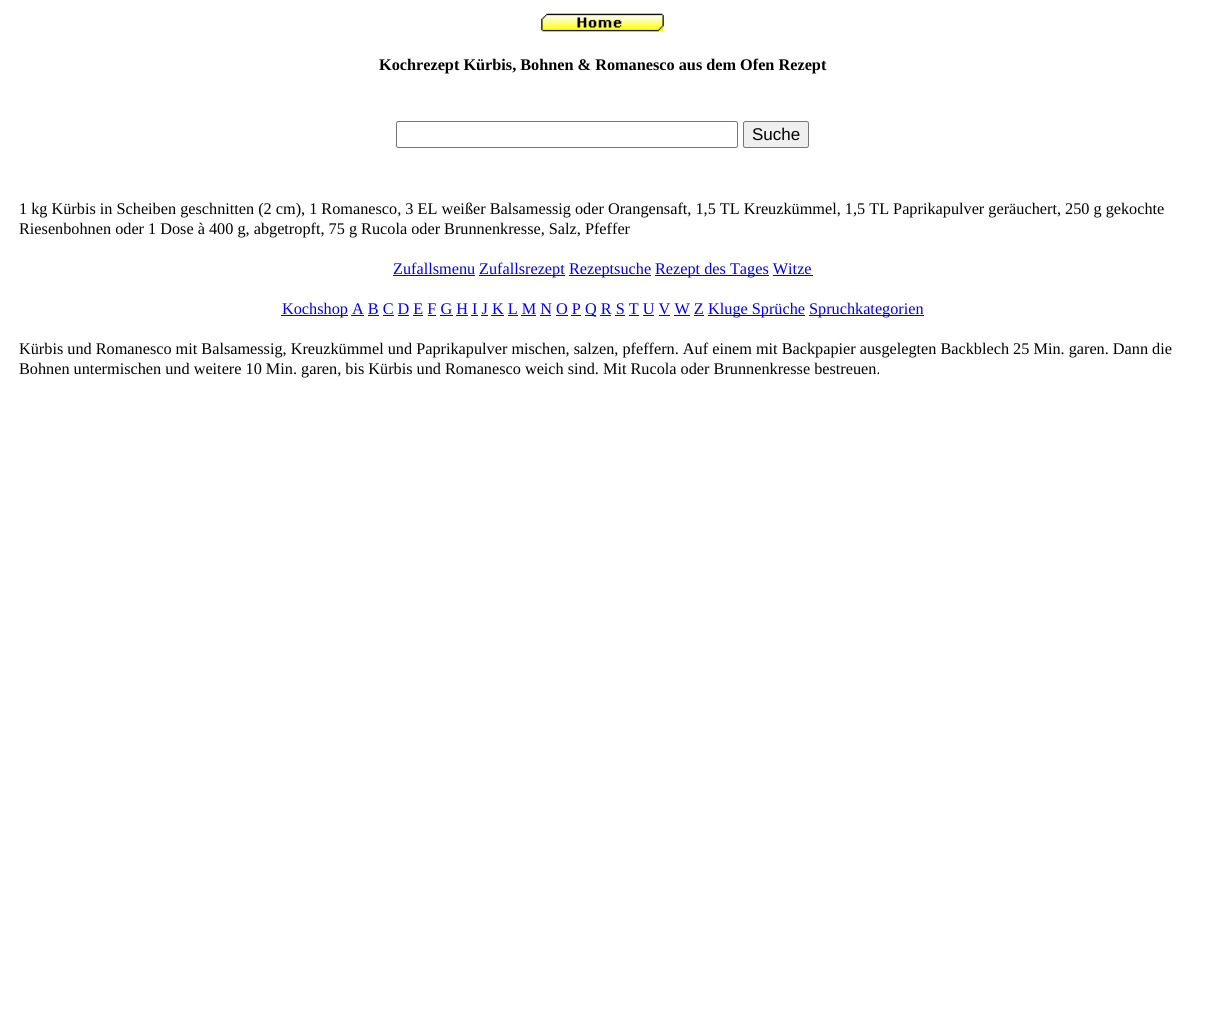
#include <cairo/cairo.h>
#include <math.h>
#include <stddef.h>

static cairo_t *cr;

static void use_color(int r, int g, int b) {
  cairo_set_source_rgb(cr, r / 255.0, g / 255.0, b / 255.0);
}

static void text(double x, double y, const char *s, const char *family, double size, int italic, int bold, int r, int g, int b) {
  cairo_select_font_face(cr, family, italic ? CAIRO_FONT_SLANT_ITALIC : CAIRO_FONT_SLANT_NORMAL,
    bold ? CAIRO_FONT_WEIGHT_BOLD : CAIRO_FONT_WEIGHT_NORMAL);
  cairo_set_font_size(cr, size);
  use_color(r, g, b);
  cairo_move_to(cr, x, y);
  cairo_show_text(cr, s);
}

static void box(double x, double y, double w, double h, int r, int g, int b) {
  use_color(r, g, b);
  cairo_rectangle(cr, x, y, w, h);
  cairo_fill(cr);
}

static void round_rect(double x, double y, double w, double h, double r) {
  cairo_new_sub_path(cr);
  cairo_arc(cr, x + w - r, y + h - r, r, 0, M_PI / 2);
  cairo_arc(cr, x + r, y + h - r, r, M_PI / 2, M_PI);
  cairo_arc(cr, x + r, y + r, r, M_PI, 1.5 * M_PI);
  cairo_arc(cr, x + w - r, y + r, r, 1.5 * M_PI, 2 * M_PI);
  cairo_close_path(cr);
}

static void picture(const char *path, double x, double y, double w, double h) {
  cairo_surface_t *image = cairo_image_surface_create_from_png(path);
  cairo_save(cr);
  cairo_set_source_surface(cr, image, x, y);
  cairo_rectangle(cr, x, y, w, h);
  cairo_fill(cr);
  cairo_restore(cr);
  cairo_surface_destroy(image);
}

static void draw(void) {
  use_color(255, 255, 255);
  cairo_paint(cr);
  picture("img_01.png", 541, 13, 123, 19);
  round_rect(396.5, 121.5, 341, 26, 2);
  use_color(118, 118, 118);
  cairo_set_line_width(cr, 1);
  cairo_stroke(cr);
  use_color(239, 239, 239);
  round_rect(743.5, 121.5, 65, 26, 2);
  cairo_fill_preserve(cr);
  use_color(118, 118, 118);
  cairo_stroke(cr);
  box(393, 275, 82, 1, 0, 0, 238);
  box(479, 275, 86, 1, 0, 0, 238);
  box(569, 275, 82, 1, 0, 0, 238);
  box(655, 275, 114, 1, 0, 0, 238);
  box(773, 275, 40, 1, 0, 0, 238);
  box(281, 315, 67, 1, 0, 0, 238);
  box(351, 315, 13, 1, 0, 0, 238);
  box(368, 315, 11, 1, 0, 0, 238);
  box(383, 315, 11, 1, 0, 0, 238);
  box(398, 315, 11, 1, 0, 0, 238);
  box(413, 315, 10, 1, 0, 0, 238);
  box(428, 315, 8, 1, 0, 0, 238);
  box(440, 315, 13, 1, 0, 0, 238);
  box(456, 315, 12, 1, 0, 0, 238);
  box(471, 315, 7, 1, 0, 0, 238);
  box(481, 315, 7, 1, 0, 0, 238);
  box(491, 315, 13, 1, 0, 0, 238);
  box(508, 315, 10, 1, 0, 0, 238);
  box(521, 315, 15, 1, 0, 0, 238);
  box(540, 315, 11, 1, 0, 0, 238);
  box(556, 315, 12, 1, 0, 0, 238);
  box(571, 315, 10, 1, 0, 0, 238);
  box(585, 315, 11, 1, 0, 0, 238);
  box(600, 315, 11, 1, 0, 0, 238);
  box(615, 315, 10, 1, 0, 0, 238);
  box(629, 315, 10, 1, 0, 0, 238);
  box(643, 315, 11, 1, 0, 0, 238);
  box(659, 315, 11, 1, 0, 0, 238);
  box(674, 315, 16, 1, 0, 0, 238);
  box(694, 315, 10, 1, 0, 0, 238);
  box(708, 315, 97, 1, 0, 0, 238);
  box(809, 315, 115, 1, 0, 0, 238);
  text(379, 70, "Kochrezept Kürbis, Bohnen & Romanesco aus dem Ofen Rezept", "Liberation Serif", 16.25, 0, 1, 0, 0, 0);
  text(752, 140, "Suche", "Liberation Sans", 17, 0, 0, 0, 0, 0);
  text(19, 214, "1 kg Kürbis in Scheiben geschnitten (2 cm), 1 Romanesco, 3 EL weißer Balsamessig oder Orangensaft, 1,5 TL Kreuzkümmel, 1,5 TL Paprikapulver geräuchert, 250 g gekochte", "Liberation Serif", 16.25, 0, 0, 0, 0, 0);
  text(19, 234, "Riesenbohnen oder 1 Dose à 400 g, abgetropft, 75 g Rucola oder Brunnenkresse, Salz, Pfeffer", "Liberation Serif", 16.25, 0, 0, 0, 0, 0);
  text(393, 274, "Zufallsmenu", "Liberation Serif", 16.25, 0, 0, 0, 0, 238);
  text(479, 274, "Zufallsrezept", "Liberation Serif", 16.25, 0, 0, 0, 0, 238);
  text(569, 274, "Rezeptsuche", "Liberation Serif", 16.25, 0, 0, 0, 0, 238);
  text(655, 274, "Rezept des Tages Witze", "Liberation Serif", 16.25, 0, 0, 0, 0, 238);
  text(282, 314, "Kochshop A B C D E F G H I J K L M N O P", "Liberation Serif", 16.25, 0, 0, 0, 0, 238);
  text(585, 314, "Q R S T U V W Z", "Liberation Serif", 16.25, 0, 0, 0, 0, 238);
  text(708, 314, "Kluge Sprüche", "Liberation Serif", 16.25, 0, 0, 0, 0, 238);
  text(809, 314, "Spruchkategorien", "Liberation Serif", 16.25, 0, 0, 0, 0, 238);
  text(19, 354, "Kürbis und Romanesco mit Balsamessig, Kreuzkümmel und Paprikapulver mischen, salzen, pfeffern. Auf einem mit Backpapier ausgelegten Backblech 25 Min. garen. Dann die", "Liberation Serif", 16.25, 0, 0, 0, 0, 0);
  text(19, 374, "Bohnen untermischen und weitere 10 Min. garen, bis Kürbis und Romanesco weich sind. Mit Rucola oder Brunnenkresse bestreuen.", "Liberation Serif", 16.25, 0, 0, 0, 0, 0);
}

int main(void) {
  cairo_surface_t *surface = cairo_image_surface_create(CAIRO_FORMAT_RGB24, 1205, 1030);
  cr = cairo_create(surface);
  cairo_font_options_t *options = cairo_font_options_create();
  cairo_font_options_set_hint_metrics(options, CAIRO_HINT_METRICS_OFF);
  cairo_font_options_set_hint_style(options, CAIRO_HINT_STYLE_NONE);
  cairo_set_font_options(cr, options);
  cairo_set_miter_limit(cr, 4);
  draw();
  cairo_surface_write_to_png(surface, "out.png");
  cairo_font_options_destroy(options);
  cairo_destroy(cr);
  cairo_surface_destroy(surface);
  return 0;
}
